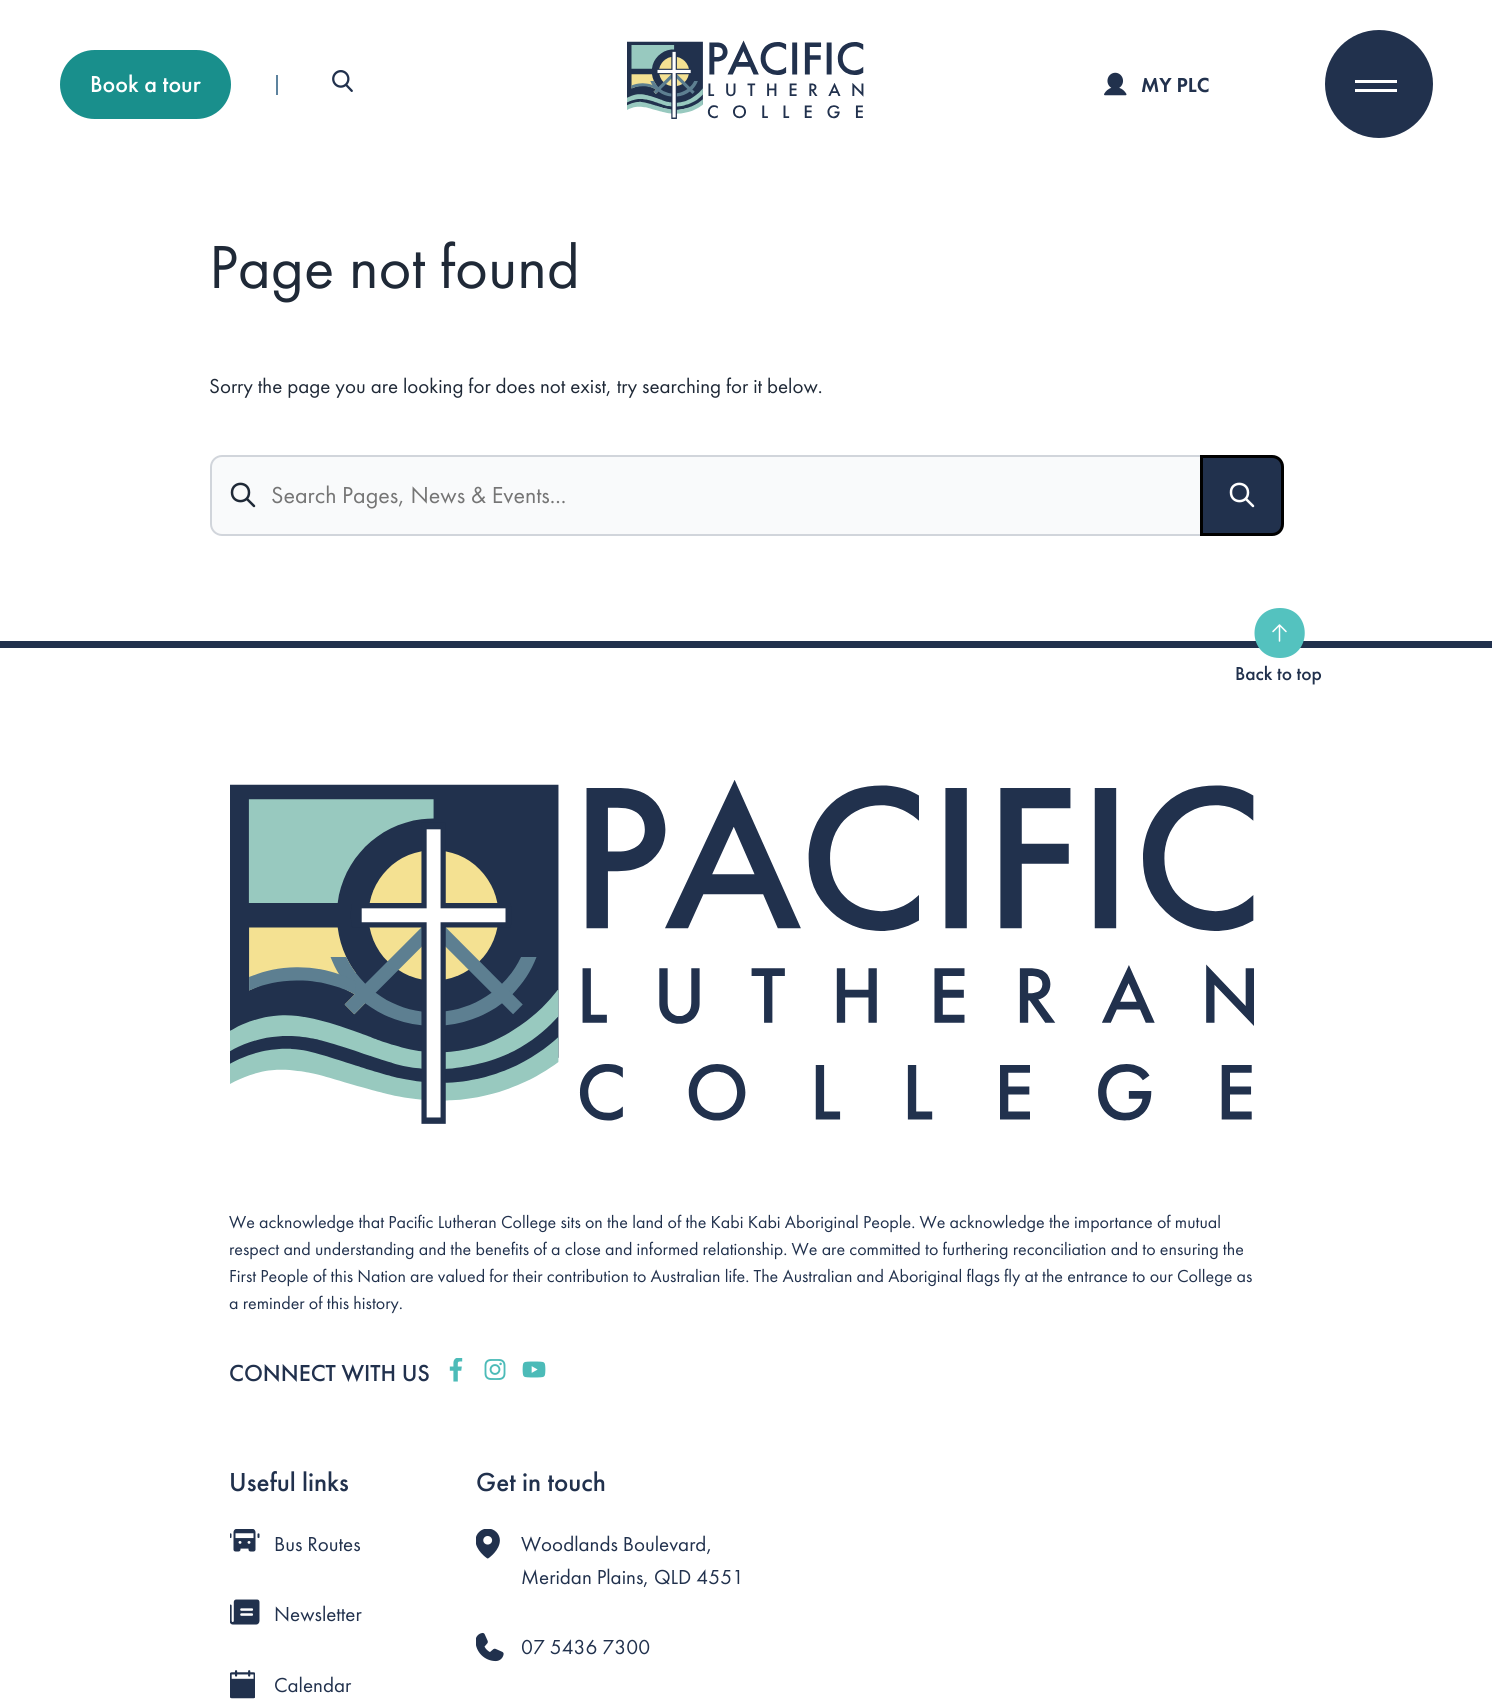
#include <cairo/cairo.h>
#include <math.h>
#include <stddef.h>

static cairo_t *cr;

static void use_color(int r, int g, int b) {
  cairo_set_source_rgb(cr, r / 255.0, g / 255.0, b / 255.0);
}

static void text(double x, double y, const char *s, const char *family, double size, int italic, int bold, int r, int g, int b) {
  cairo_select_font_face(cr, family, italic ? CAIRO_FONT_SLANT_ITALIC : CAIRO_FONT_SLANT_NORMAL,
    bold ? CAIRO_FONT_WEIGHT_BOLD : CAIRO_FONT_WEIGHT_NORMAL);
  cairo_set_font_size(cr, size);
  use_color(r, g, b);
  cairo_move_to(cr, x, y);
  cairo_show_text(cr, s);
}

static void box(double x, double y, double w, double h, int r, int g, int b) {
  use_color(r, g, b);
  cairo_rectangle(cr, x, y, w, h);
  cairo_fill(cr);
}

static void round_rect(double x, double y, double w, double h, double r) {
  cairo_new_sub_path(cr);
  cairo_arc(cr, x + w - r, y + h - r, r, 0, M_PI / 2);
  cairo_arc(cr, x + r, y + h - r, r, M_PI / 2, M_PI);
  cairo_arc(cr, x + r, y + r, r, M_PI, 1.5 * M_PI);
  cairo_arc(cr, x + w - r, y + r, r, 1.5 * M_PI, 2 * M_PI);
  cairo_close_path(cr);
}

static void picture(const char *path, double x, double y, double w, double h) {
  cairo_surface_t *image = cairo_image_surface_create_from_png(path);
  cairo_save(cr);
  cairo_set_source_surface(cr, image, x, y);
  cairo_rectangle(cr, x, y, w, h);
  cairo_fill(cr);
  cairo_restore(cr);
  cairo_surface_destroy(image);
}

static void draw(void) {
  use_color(255, 255, 255);
  cairo_paint(cr);
  use_color(25, 143, 140);
  round_rect(60, 50, 171, 69, 34.5);
  cairo_fill(cr);
  box(276, 75, 2, 20, 93, 131, 158);
  picture("img_01.png", 332, 70, 21, 22);
  picture("img_02.png", 627, 40, 237, 79);
  picture("img_03.png", 1104, 72, 23, 24);
  use_color(33, 49, 77);
  cairo_arc(cr, 1379, 84, 54, 0, 2 * M_PI);
  cairo_fill(cr);
  box(1355, 80, 42, 3, 255, 255, 255);
  box(1355, 89, 42, 3, 255, 255, 255);
  use_color(249, 250, 251);
  round_rect(211, 456, 1072, 79, 11);
  cairo_fill_preserve(cr);
  use_color(209, 213, 219);
  cairo_stroke(cr);
  cairo_new_path(cr);
  cairo_move_to(cr, 254, 506);
  cairo_line_to(cr, 247, 499);
  cairo_move_to(cr, 249, 492.5);
  cairo_curve_to(cr, 249, 504, 232, 504, 232, 492.5);
  cairo_curve_to(cr, 232, 481, 249, 481, 249, 492.5);
  cairo_close_path(cr);
  use_color(31, 41, 55);
  cairo_set_line_width(cr, 2.5);
  cairo_set_line_cap(cr, CAIRO_LINE_CAP_ROUND);
  cairo_set_line_join(cr, CAIRO_LINE_JOIN_ROUND);
  cairo_stroke(cr);
  use_color(33, 49, 77);
  cairo_new_path(cr);
  cairo_move_to(cr, 1201.5, 456.5);
  cairo_line_to(cr, 1272, 456.5);
  cairo_curve_to(cr, 1278, 456.5, 1282.5, 461, 1282.5, 467);
  cairo_line_to(cr, 1282.5, 524);
  cairo_curve_to(cr, 1282.5, 530, 1278, 534.5, 1272, 534.5);
  cairo_line_to(cr, 1201.5, 534.5);
  cairo_close_path(cr);
  cairo_fill_preserve(cr);
  use_color(0, 0, 0);
  cairo_set_line_width(cr, 3);
  cairo_set_line_cap(cr, CAIRO_LINE_CAP_BUTT);
  cairo_set_line_join(cr, CAIRO_LINE_JOIN_MITER);
  cairo_stroke(cr);
  cairo_new_path(cr);
  cairo_move_to(cr, 1253, 506);
  cairo_line_to(cr, 1246, 499);
  cairo_move_to(cr, 1248, 492.5);
  cairo_curve_to(cr, 1248, 504, 1231, 504, 1231, 492.5);
  cairo_curve_to(cr, 1230.5, 481, 1248, 481, 1248, 492.5);
  cairo_close_path(cr);
  use_color(255, 255, 255);
  cairo_set_line_width(cr, 2.5);
  cairo_set_line_cap(cr, CAIRO_LINE_CAP_ROUND);
  cairo_set_line_join(cr, CAIRO_LINE_JOIN_ROUND);
  cairo_stroke(cr);
  box(0, 641, 1492, 7, 33, 49, 77);
  use_color(84, 194, 191);
  cairo_new_path(cr);
  cairo_move_to(cr, 1280, 658);
  cairo_curve_to(cr, 1246, 658, 1246, 608, 1280, 608);
  cairo_curve_to(cr, 1313, 608, 1313, 658, 1280, 658);
  cairo_close_path(cr);
  cairo_fill(cr);
  cairo_new_path(cr);
  cairo_move_to(cr, 1279.5, 641);
  cairo_line_to(cr, 1279.5, 625);
  cairo_move_to(cr, 1273, 631.5);
  cairo_line_to(cr, 1279.5, 625);
  cairo_line_to(cr, 1286, 631.5);
  use_color(255, 255, 255);
  cairo_set_line_width(cr, 1.5);
  cairo_stroke(cr);
  picture("img_04.png", 230, 780, 1024, 344);
  picture("img_05.png", 449, 1358, 14, 24);
  picture("img_06.png", 484, 1359, 22, 21);
  picture("img_07.png", 522, 1361, 24, 17);
  picture("img_08.png", 230, 1529, 30, 23);
  picture("img_09.png", 230, 1599, 30, 26);
  picture("img_10.png", 230, 1670, 25, 29);
  picture("img_11.png", 476, 1529, 24, 30);
  picture("img_12.png", 476, 1632, 28, 30);
  text(90, 92, "Book a tour", "Futura PT Medium", 24, 0, 0, 255, 255, 255);
  text(1141, 92, "MY PLC", "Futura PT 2 Medium", 21, 0, 0, 33, 49, 77);
  text(209, 288, "Page not found", "Futura PT", 63, 0, 0, 31, 41, 55);
  text(209, 393, "Sorry the page you are looking for does not exist, try searching for it below.", "Futura PT", 21, 0, 0, 31, 41, 55);
  text(271, 503, "Search Pages, News & Events...", "Futura PT", 24, 0, 0, 117, 117, 117);
  text(1235, 680, "Back to top", "Futura PT Medium", 19.5, 0, 0, 33, 49, 77);
  text(229, 1228, "We acknowledge that Pacific Lutheran College sits on the land of the Kabi Kabi Aboriginal People. We acknowledge the importance of mutual", "Futura PT", 18, 0, 0, 33, 49, 77);
  text(229, 1255, "respect and understanding and the benefits of a close and informed relationship. We are committed to furthering reconciliation and to ensuring the", "Futura PT", 18, 0, 0, 33, 49, 77);
  text(229, 1282, "First People of this Nation are valued for their contribution to Australian life. The Australian and Aboriginal flags fly at the entrance to our College as", "Futura PT", 18, 0, 0, 33, 49, 77);
  text(229, 1309, "a reminder of this history.", "Futura PT", 18, 0, 0, 33, 49, 77);
  text(229, 1381, "CONNECT WITH US", "Futura PT Medium", 24, 0, 0, 33, 49, 77);
  text(229, 1491, "Useful links", "Futura PT Medium", 27, 0, 0, 33, 49, 77);
  text(274, 1551, "Bus Routes", "Futura PT", 21, 0, 0, 33, 49, 77);
  text(274, 1621, "Newsletter", "Futura PT", 21, 0, 0, 33, 49, 77);
  text(274, 1692, "Calendar", "Futura PT", 21, 0, 0, 33, 49, 77);
  text(476, 1491, "Get in touch", "Futura PT Medium", 27, 0, 0, 33, 49, 77);
  text(521, 1551, "Woodlands Boulevard,", "Futura PT", 21, 0, 0, 33, 49, 77);
  text(521, 1584, "Meridan Plains, QLD 4551", "Futura PT", 21, 0, 0, 33, 49, 77);
  text(521, 1654, "07 5436 7300", "Futura PT", 21, 0, 0, 33, 49, 77);
}

int main(void) {
  cairo_surface_t *surface = cairo_image_surface_create(CAIRO_FORMAT_RGB24, 1492, 1702);
  cr = cairo_create(surface);
  cairo_font_options_t *options = cairo_font_options_create();
  cairo_font_options_set_hint_metrics(options, CAIRO_HINT_METRICS_OFF);
  cairo_font_options_set_hint_style(options, CAIRO_HINT_STYLE_NONE);
  cairo_set_font_options(cr, options);
  cairo_set_miter_limit(cr, 4);
  draw();
  cairo_surface_write_to_png(surface, "out.png");
  cairo_font_options_destroy(options);
  cairo_destroy(cr);
  cairo_surface_destroy(surface);
  return 0;
}
